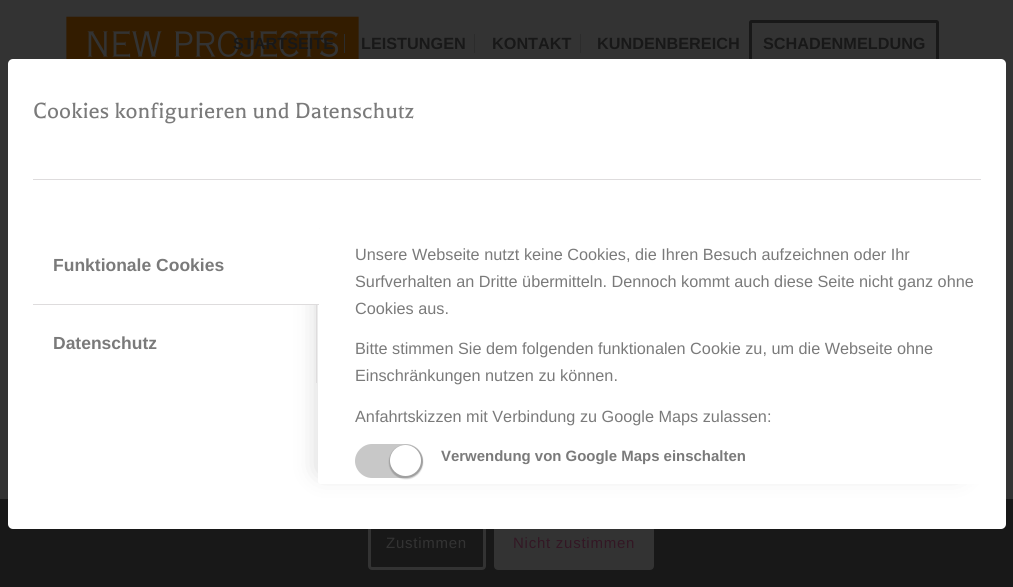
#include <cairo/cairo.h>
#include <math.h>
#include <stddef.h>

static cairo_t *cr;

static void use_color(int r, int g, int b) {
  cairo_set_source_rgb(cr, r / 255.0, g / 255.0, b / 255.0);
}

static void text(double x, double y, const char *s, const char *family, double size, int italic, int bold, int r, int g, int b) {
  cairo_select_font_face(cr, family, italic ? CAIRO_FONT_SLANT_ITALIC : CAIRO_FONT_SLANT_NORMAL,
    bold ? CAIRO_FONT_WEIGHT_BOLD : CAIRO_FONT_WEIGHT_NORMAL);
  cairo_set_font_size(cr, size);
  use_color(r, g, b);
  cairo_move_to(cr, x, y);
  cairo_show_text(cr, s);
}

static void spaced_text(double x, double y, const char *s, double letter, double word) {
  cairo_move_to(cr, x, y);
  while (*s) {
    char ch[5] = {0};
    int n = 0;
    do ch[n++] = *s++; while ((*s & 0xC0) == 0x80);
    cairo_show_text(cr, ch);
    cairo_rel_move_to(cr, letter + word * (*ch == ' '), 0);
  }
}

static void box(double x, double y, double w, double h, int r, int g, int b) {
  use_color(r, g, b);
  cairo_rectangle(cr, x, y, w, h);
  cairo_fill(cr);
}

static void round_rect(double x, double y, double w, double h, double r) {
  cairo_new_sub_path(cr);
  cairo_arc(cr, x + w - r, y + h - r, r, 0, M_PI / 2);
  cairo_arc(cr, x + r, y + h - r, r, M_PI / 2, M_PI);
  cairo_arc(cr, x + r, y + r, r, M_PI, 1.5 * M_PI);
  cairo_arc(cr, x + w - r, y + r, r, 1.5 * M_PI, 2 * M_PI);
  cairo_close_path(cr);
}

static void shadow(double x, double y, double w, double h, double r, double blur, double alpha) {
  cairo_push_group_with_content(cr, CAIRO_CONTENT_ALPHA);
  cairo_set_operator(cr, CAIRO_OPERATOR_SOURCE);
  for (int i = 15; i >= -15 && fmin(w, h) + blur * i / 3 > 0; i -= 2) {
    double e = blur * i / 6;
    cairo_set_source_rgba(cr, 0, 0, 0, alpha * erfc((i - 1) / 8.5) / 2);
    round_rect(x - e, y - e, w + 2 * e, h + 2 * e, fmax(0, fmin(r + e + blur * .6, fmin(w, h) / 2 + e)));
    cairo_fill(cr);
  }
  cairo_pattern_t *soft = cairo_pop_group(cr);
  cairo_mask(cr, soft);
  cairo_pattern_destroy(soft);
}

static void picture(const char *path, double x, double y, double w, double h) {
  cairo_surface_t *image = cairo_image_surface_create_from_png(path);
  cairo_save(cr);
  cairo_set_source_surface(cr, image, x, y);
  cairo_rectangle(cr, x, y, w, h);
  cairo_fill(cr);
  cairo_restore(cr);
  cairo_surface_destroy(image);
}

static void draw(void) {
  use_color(51, 51, 51);
  cairo_paint(cr);
  picture("img_01.png", 66, 16, 293, 43);
  box(344, 34, 1, 19, 44, 44, 44);
  box(474, 34, 1, 19, 44, 44, 44);
  box(580, 34, 1, 19, 44, 44, 44);
  round_rect(750.5, 21.5, 187, 43, 1);
  use_color(24, 24, 24);
  cairo_set_line_width(cr, 3);
  cairo_stroke(cr);
  box(0, 499, 1013, 88, 24, 24, 24);
  round_rect(369.5, 517.5, 115, 51, 2.5);
  use_color(51, 51, 51);
  cairo_stroke(cr);
  round_rect(495.5, 517.5, 157, 51, 2.5);
  cairo_fill_preserve(cr);
  cairo_stroke(cr);
  use_color(255, 255, 255);
  round_rect(8, 59, 998, 470, 5);
  cairo_fill(cr);
  box(33, 179, 948, 1, 222, 220, 221);
  cairo_save(cr);
  cairo_rectangle(cr, 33, 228, 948, 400);
  cairo_clip(cr);
  use_color(0, 0, 0);
  shadow(320, 240, 639, 231, 0, 12.5, 0.2);
  cairo_restore(cr);
  box(316, 304, 1, 79, 222, 220, 221);
  use_color(255, 255, 255);
  round_rect(318, 228, 663, 256, 2.5);
  cairo_fill(cr);
  cairo_new_path(cr);
  cairo_move_to(cr, 35.5, 228);
  cairo_line_to(cr, 319, 228);
  cairo_line_to(cr, 319, 305);
  cairo_line_to(cr, 33, 305);
  cairo_line_to(cr, 33, 230.5);
  cairo_curve_to(cr, 33, 229, 34, 228, 35.5, 228);
  cairo_close_path(cr);
  cairo_fill(cr);
  box(33, 304, 286, 1, 222, 220, 221);
  use_color(235, 235, 235);
  round_rect(355, 444, 68, 34, 17);
  cairo_fill(cr);
  cairo_set_source_rgba(cr, 0, 0, 0, 0.15);
  cairo_new_path(cr);
  cairo_move_to(cr, 372, 444);
  cairo_line_to(cr, 406, 444);
  cairo_curve_to(cr, 415, 444, 423, 452, 423, 461);
  cairo_curve_to(cr, 423, 470, 415, 478, 406, 478);
  cairo_line_to(cr, 372, 478);
  cairo_curve_to(cr, 363, 478, 355, 470, 355, 461);
  cairo_curve_to(cr, 355, 452, 363, 444, 372, 444);
  cairo_close_path(cr);
  cairo_fill(cr);
  use_color(0, 0, 0);
  shadow(389, 445, 34, 34, 17, 0.5, 0.2);
  use_color(255, 255, 255);
  cairo_arc(cr, 405.5, 460.5, 15.5, 0, 2 * M_PI);
  cairo_fill(cr);
  text(233, 49, "STARTSEITE", "Liberation Sans", 16.25, 0, 1, 24, 24, 24);
  text(361, 49, "LEISTUNGEN", "Liberation Sans", 16.25, 0, 1, 24, 24, 24);
  text(492, 49, "KONTAKT", "Liberation Sans", 16.25, 0, 1, 24, 24, 24);
  text(597, 49, "KUNDENBEREICH", "Liberation Sans", 16.25, 0, 1, 24, 24, 24);
  text(763, 49, "SCHADENMELDUNG", "Liberation Sans", 16.25, 0, 1, 24, 24, 24);
  text(33, 118, "Cookies konfigurieren und Datenschutz", "Balthazar", 25, 0, 0, 122, 122, 122);
  text(53, 271, "Funktionale Cookies", "Liberation Sans", 17.5, 0, 1, 122, 122, 122);
  text(53, 349, "Datenschutz", "Liberation Sans", 17.5, 0, 1, 122, 122, 122);
  text(355, 260, "Unsere Webseite nutzt keine Cookies, die Ihren Besuch aufzeichnen oder Ihr", "Liberation Sans", 16.25, 0, 0, 122, 122, 122);
  text(355, 287, "Surfverhalten an Dritte übermitteln. Dennoch kommt auch diese Seite nicht ganz ohne", "Liberation Sans", 16.25, 0, 0, 122, 122, 122);
  text(355, 314, "Cookies aus.", "Liberation Sans", 16.25, 0, 0, 122, 122, 122);
  text(355, 354, "Bitte stimmen Sie dem folgenden funktionalen Cookie zu, um die Webseite ohne", "Liberation Sans", 16.25, 0, 0, 122, 122, 122);
  text(355, 381, "Einschränkungen nutzen zu können.", "Liberation Sans", 16.25, 0, 0, 122, 122, 122);
  text(355, 422, "Anfahrtskizzen mit Verbindung zu Google Maps zulassen:", "Liberation Sans", 16.25, 0, 0, 122, 122, 122);
  text(441, 461, "Verwendung von Google Maps einschalten", "Liberation Sans", 14.95, 0, 1, 122, 122, 122);
  cairo_select_font_face(cr, "Liberation Sans", CAIRO_FONT_SLANT_NORMAL, CAIRO_FONT_WEIGHT_NORMAL);
  cairo_set_font_size(cr, 15);
  use_color(51, 51, 51);
  spaced_text(386, 548, "Zustimmen", 0.75, 0);
  use_color(51, 23, 36);
  spaced_text(513, 548, "Nicht zustimmen", 0.75, 0);
}

int main(void) {
  cairo_surface_t *surface = cairo_image_surface_create(CAIRO_FORMAT_RGB24, 1013, 587);
  cr = cairo_create(surface);
  cairo_font_options_t *options = cairo_font_options_create();
  cairo_font_options_set_hint_metrics(options, CAIRO_HINT_METRICS_OFF);
  cairo_font_options_set_hint_style(options, CAIRO_HINT_STYLE_NONE);
  cairo_set_font_options(cr, options);
  cairo_set_miter_limit(cr, 4);
  draw();
  cairo_surface_write_to_png(surface, "out.png");
  cairo_font_options_destroy(options);
  cairo_destroy(cr);
  cairo_surface_destroy(surface);
  return 0;
}
